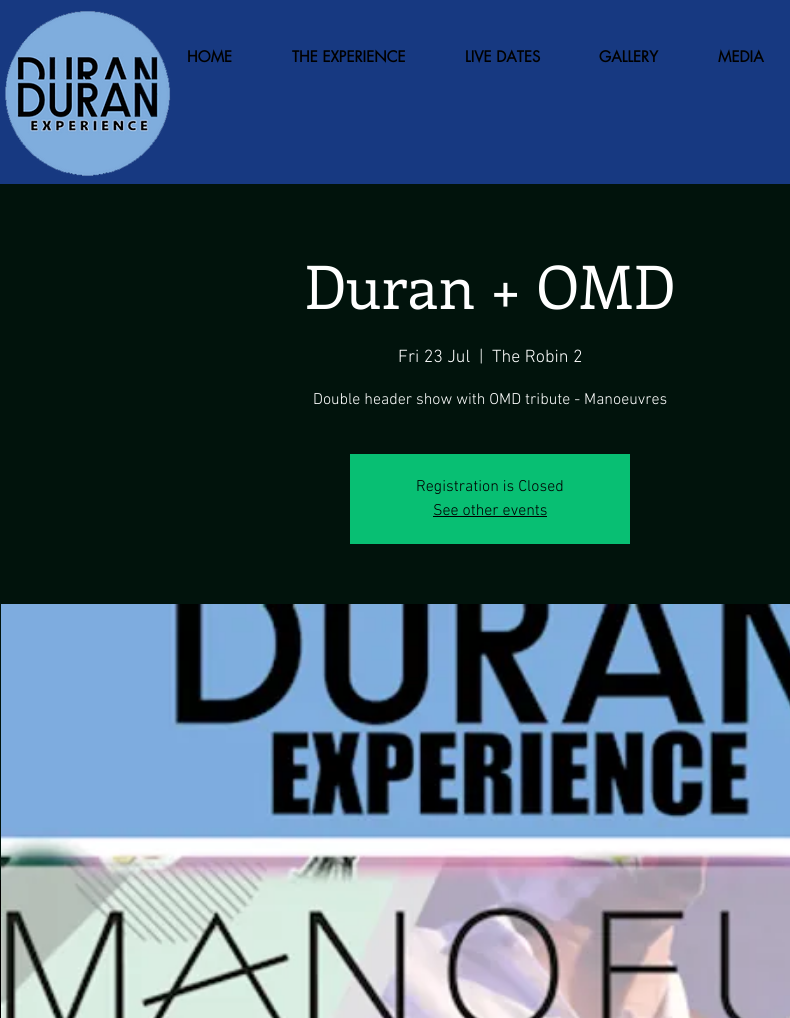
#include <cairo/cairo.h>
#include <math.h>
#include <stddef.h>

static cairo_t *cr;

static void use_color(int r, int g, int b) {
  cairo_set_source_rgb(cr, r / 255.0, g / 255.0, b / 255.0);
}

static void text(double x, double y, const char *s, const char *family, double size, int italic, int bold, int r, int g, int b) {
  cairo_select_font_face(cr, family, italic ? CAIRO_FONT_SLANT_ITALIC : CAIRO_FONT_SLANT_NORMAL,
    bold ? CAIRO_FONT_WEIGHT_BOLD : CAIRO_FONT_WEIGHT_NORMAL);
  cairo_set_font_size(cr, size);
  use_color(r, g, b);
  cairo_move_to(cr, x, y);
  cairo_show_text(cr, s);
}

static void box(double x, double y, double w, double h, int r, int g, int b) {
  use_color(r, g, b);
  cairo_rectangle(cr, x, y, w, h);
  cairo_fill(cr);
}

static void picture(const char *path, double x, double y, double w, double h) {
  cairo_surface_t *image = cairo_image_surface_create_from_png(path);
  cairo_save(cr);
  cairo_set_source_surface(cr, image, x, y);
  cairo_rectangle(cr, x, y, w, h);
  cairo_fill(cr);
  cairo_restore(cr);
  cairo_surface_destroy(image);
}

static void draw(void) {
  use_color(23, 57, 129);
  cairo_paint(cr);
  picture("img_01.png", 5, 11, 166, 165);
  box(0, 184, 790, 696, 1, 19, 12);
  box(350, 454, 280, 90, 8, 191, 115);
  box(433, 516, 114, 1, 0, 0, 0);
  picture("img_02.png", 1, 604, 789, 414);
  box(0, 880, 1, 138, 0, 0, 0);
  text(187, 62, "HOME", "futura", 15, 0, 1, 0, 0, 0);
  text(292, 62, "THE EXPERIENCE", "futura", 15, 0, 1, 0, 0, 0);
  text(465, 62, "LIVE DATES", "futura", 15, 0, 1, 0, 0, 0);
  text(599, 62, "GALLERY", "futura", 15, 0, 1, 0, 0, 0);
  text(718, 62, "MEDIA", "futura", 15, 0, 1, 0, 0, 0);
  text(304, 309, "Duran + OMD", "Enriqueta", 60, 0, 0, 255, 255, 255);
  text(398, 362, "Fri 23 Jul", "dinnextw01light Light", 18, 0, 0, 255, 255, 255);
  text(479, 362, "|", "dinnextw01light Light", 18, 0, 0, 255, 255, 255);
  text(492, 362, "The Robin 2", "dinnextw01light Light", 18, 0, 0, 255, 255, 255);
  text(313, 404, "Double header show with OMD tribute - Manoeuvres", "dinnextw01light Light", 16, 0, 0, 255, 255, 255);
  text(416, 491, "Registration is Closed", "dinnextw01light Light", 16, 0, 0, 0, 0, 0);
  text(433, 515, "See other events", "dinnextw01light Light", 16, 0, 0, 0, 0, 0);
}

int main(void) {
  cairo_surface_t *surface = cairo_image_surface_create(CAIRO_FORMAT_RGB24, 790, 1018);
  cr = cairo_create(surface);
  cairo_font_options_t *options = cairo_font_options_create();
  cairo_font_options_set_hint_metrics(options, CAIRO_HINT_METRICS_OFF);
  cairo_font_options_set_hint_style(options, CAIRO_HINT_STYLE_NONE);
  cairo_set_font_options(cr, options);
  cairo_set_miter_limit(cr, 4);
  draw();
  cairo_surface_write_to_png(surface, "out.png");
  cairo_font_options_destroy(options);
  cairo_destroy(cr);
  cairo_surface_destroy(surface);
  return 0;
}
